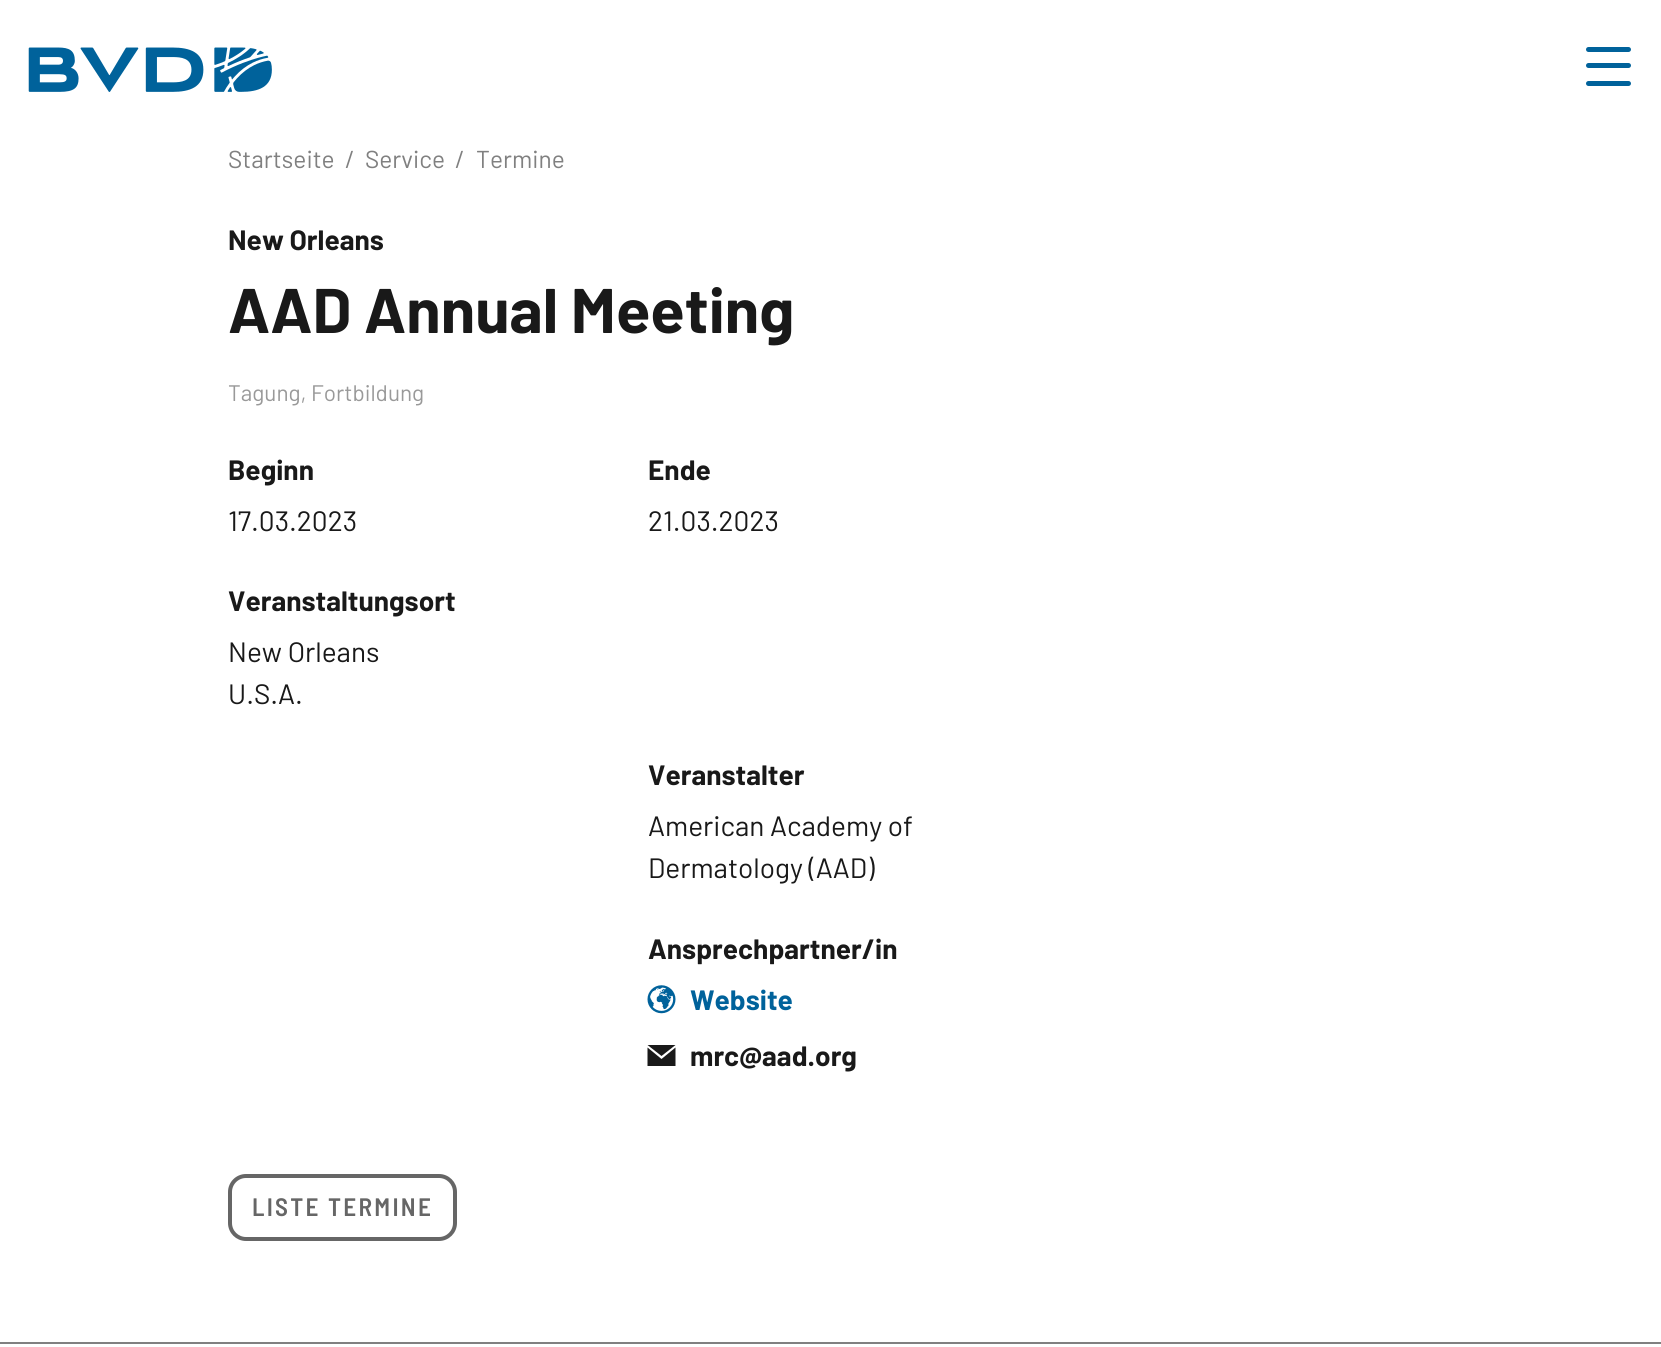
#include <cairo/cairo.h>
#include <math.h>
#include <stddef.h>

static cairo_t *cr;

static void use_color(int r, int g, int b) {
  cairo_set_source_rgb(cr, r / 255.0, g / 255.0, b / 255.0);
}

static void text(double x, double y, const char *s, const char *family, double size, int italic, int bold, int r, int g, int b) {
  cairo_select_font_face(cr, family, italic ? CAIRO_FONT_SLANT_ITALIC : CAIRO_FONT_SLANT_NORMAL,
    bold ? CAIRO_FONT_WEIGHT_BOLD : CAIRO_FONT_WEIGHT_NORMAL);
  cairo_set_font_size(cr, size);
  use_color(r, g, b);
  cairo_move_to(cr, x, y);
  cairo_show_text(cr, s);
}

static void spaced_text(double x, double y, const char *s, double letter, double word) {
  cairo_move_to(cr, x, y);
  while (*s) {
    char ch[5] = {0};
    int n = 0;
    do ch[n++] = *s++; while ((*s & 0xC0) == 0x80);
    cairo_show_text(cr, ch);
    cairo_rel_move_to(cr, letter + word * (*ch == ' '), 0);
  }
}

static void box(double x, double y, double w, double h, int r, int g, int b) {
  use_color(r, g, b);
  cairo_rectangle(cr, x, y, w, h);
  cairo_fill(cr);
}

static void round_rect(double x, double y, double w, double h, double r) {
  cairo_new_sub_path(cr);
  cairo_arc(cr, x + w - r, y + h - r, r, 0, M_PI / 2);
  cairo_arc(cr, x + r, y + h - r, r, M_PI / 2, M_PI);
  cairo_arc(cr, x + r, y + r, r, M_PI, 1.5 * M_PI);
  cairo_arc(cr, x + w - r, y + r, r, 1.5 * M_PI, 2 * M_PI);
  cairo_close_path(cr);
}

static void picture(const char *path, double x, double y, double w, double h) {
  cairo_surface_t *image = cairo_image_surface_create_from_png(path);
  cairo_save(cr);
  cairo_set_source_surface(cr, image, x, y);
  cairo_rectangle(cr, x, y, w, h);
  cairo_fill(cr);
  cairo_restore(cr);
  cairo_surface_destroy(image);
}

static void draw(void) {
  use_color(255, 255, 255);
  cairo_paint(cr);
  picture("img_01.png", 28, 47, 244, 45);
  use_color(0, 98, 155);
  round_rect(1586, 47, 45, 5, 2.5);
  cairo_fill(cr);
  round_rect(1586, 63, 45, 5, 2.5);
  cairo_fill(cr);
  round_rect(1586, 81, 45, 5, 2.5);
  cairo_fill(cr);
  picture("img_02.png", 647, 985, 29, 29);
  use_color(25, 25, 25);
  cairo_new_path(cr);
  cairo_move_to(cr, 661.5, 1056);
  cairo_line_to(cr, 647.5, 1045);
  cairo_line_to(cr, 675.5, 1045);
  cairo_close_path(cr);
  cairo_move_to(cr, 661.5, 1059);
  cairo_line_to(cr, 647.5, 1047.5);
  cairo_line_to(cr, 647.5, 1066);
  cairo_line_to(cr, 675.5, 1066);
  cairo_line_to(cr, 675.5, 1047.5);
  cairo_close_path(cr);
  cairo_fill(cr);
  round_rect(230, 1176, 225, 63, 16);
  use_color(102, 102, 102);
  cairo_set_line_width(cr, 4);
  cairo_stroke(cr);
  box(0, 1342, 1661, 2, 128, 128, 128);
  text(228, 168, "Startseite", "Barlow", 24.5, 0, 0, 128, 128, 128);
  text(345, 168, "/", "Barlow", 24.5, 0, 0, 128, 128, 128);
  text(365, 168, "Service", "Barlow", 24.5, 0, 0, 128, 128, 128);
  text(455, 168, "/", "Barlow", 24.5, 0, 0, 128, 128, 128);
  text(476, 168, "Termine", "Barlow", 24.5, 0, 0, 128, 128, 128);
  text(228, 250, "New Orleans", "Barlow", 28, 0, 1, 25, 25, 25);
  text(228, 333, "AAD Annual Meeting", "Barlow", 63, 0, 1, 25, 25, 25);
  text(228, 401, "Tagung, Fortbildung", "Barlow", 22.5, 0, 0, 153, 153, 153);
  text(228, 480, "Beginn", "Barlow", 28, 0, 1, 25, 25, 25);
  text(228, 531, "17.03.2023", "Barlow", 28, 0, 0, 25, 25, 25);
  text(648, 480, "Ende", "Barlow", 28, 0, 1, 25, 25, 25);
  text(648, 531, "21.03.2023", "Barlow", 28, 0, 0, 25, 25, 25);
  text(228, 611, "Veranstaltungsort", "Barlow", 28, 0, 1, 25, 25, 25);
  text(228, 662, "New Orleans", "Barlow", 28, 0, 0, 25, 25, 25);
  text(228, 704, "U.S.A.", "Barlow", 28, 0, 0, 25, 25, 25);
  text(648, 785, "Veranstalter", "Barlow", 28, 0, 1, 25, 25, 25);
  text(648, 836, "American Academy of", "Barlow", 28, 0, 0, 25, 25, 25);
  text(648, 878, "Dermatology (AAD)", "Barlow", 28, 0, 0, 25, 25, 25);
  text(648, 959, "Ansprechpartner/in", "Barlow", 28, 0, 1, 25, 25, 25);
  text(690, 1010, "Website", "Barlow", 28, 0, 1, 0, 98, 155);
  text(690, 1066, "mrc@aad.org", "Barlow", 28, 0, 1, 25, 25, 25);
  cairo_select_font_face(cr, "Barlow Semi Condensed SemiBold", CAIRO_FONT_SLANT_NORMAL, CAIRO_FONT_WEIGHT_NORMAL);
  cairo_set_font_size(cr, 25.25);
  use_color(102, 102, 102);
  spaced_text(252, 1216, "LISTE TERMINE", 2.25, 0);
}

int main(void) {
  cairo_surface_t *surface = cairo_image_surface_create(CAIRO_FORMAT_RGB24, 1661, 1347);
  cr = cairo_create(surface);
  cairo_font_options_t *options = cairo_font_options_create();
  cairo_font_options_set_hint_metrics(options, CAIRO_HINT_METRICS_OFF);
  cairo_font_options_set_hint_style(options, CAIRO_HINT_STYLE_NONE);
  cairo_set_font_options(cr, options);
  cairo_set_miter_limit(cr, 4);
  draw();
  cairo_surface_write_to_png(surface, "out.png");
  cairo_font_options_destroy(options);
  cairo_destroy(cr);
  cairo_surface_destroy(surface);
  return 0;
}
